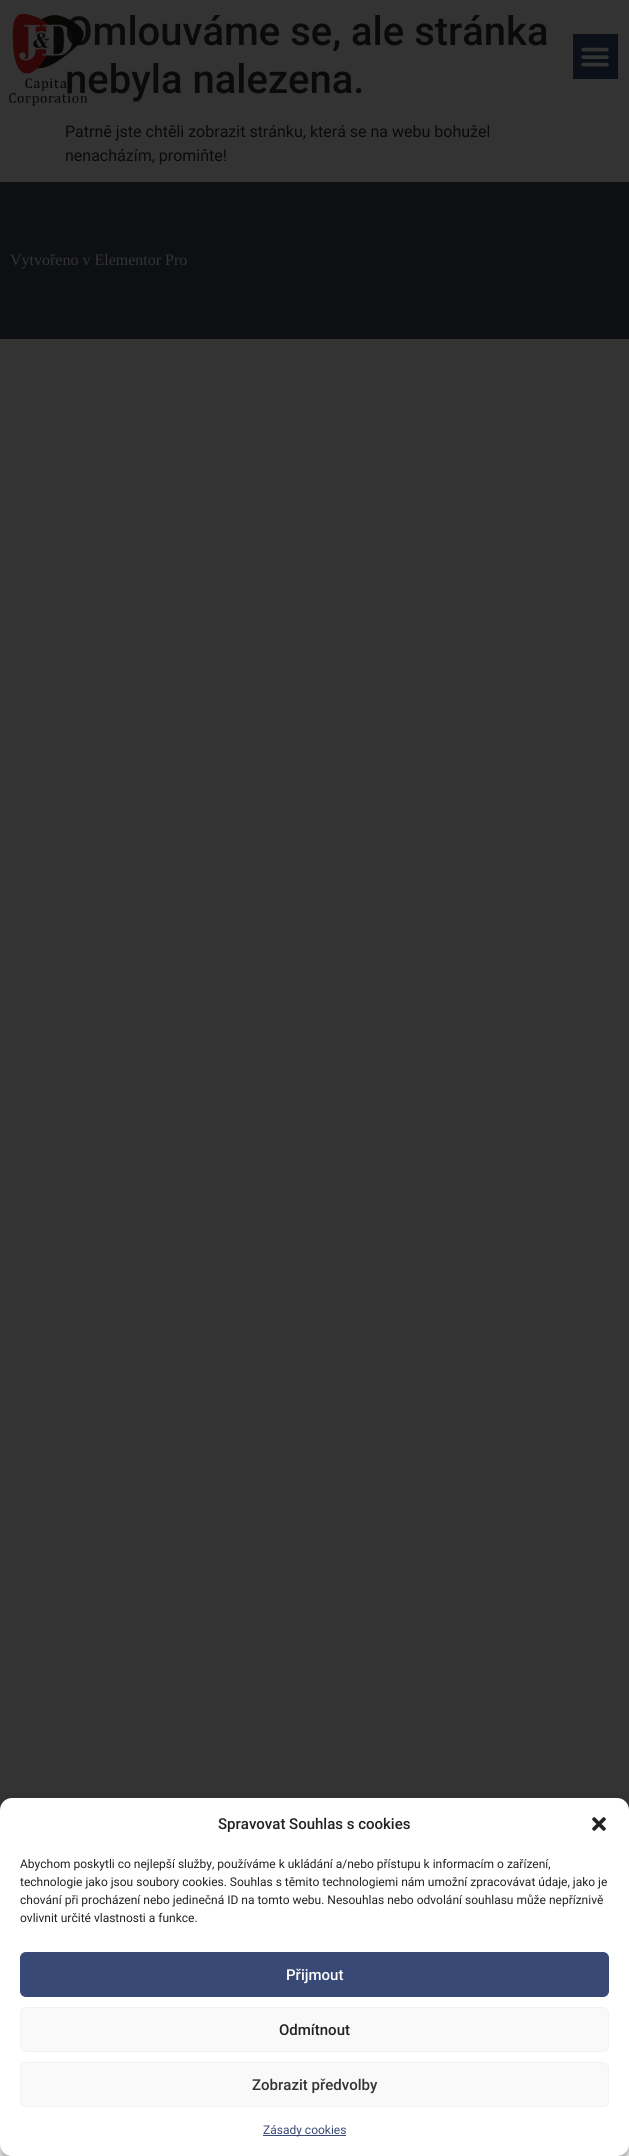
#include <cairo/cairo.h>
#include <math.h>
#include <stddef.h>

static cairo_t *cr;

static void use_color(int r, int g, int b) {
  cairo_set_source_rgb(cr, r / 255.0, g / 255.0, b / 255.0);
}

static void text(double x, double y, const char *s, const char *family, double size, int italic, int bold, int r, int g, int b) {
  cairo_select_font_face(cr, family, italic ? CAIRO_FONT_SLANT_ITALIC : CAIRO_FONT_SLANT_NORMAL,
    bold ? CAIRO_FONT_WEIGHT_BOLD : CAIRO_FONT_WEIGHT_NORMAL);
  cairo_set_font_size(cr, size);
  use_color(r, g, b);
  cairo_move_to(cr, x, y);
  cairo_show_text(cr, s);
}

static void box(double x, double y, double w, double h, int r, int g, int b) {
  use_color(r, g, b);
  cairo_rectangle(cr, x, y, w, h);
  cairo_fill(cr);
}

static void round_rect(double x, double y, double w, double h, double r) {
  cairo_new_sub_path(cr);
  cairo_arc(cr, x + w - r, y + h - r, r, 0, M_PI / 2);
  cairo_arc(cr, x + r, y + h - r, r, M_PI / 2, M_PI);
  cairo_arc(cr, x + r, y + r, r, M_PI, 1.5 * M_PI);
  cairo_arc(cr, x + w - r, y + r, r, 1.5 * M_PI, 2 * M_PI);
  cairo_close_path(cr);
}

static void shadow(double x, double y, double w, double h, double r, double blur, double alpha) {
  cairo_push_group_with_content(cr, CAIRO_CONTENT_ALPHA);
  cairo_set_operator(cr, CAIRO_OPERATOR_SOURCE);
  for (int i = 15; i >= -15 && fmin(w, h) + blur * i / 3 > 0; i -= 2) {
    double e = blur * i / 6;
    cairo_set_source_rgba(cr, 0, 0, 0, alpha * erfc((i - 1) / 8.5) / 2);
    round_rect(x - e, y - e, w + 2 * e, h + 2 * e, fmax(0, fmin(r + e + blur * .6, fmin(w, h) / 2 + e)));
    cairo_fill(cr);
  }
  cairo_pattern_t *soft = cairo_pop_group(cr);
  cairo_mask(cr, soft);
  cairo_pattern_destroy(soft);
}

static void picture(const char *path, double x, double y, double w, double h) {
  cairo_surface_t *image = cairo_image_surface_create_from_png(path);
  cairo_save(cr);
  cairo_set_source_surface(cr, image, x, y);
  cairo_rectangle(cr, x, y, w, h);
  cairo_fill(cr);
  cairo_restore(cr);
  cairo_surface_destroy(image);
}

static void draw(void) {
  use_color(51, 51, 51);
  cairo_paint(cr);
  box(573, 34, 45, 45, 11, 15, 23);
  picture("img_02.png", 581, 47, 28, 20);
  box(0, 182, 629, 157, 13, 15, 18);
  box(0, 2144, 629, 12, 255, 255, 255);
  use_color(0, 0, 0);
  shadow(0, 1804, 629, 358, 12, 3, 0.23);
  shadow(0, 1808, 629, 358, 12, 10, 0.19);
  use_color(255, 255, 255);
  round_rect(0, 1798, 629, 358, 12);
  cairo_fill(cr);
  picture("img_03.png", 592, 1817, 14, 14);
  use_color(56, 73, 117);
  round_rect(20.5, 1952.5, 588, 44, 5.5);
  cairo_fill_preserve(cr);
  cairo_set_line_width(cr, 1);
  cairo_stroke(cr);
  use_color(249, 249, 249);
  round_rect(20.5, 2007.5, 588, 44, 5.5);
  cairo_fill_preserve(cr);
  use_color(242, 242, 242);
  cairo_stroke(cr);
  use_color(249, 249, 249);
  round_rect(20.5, 2062.5, 588, 44, 5.5);
  cairo_fill_preserve(cr);
  use_color(242, 242, 242);
  cairo_stroke(cr);
  box(263, 2135, 83, 1, 56, 73, 117);
  text(65, 45, "Omlouváme se, ale stránka", "Roboto Medium", 40, 0, 0, 10, 10, 10);
  text(65, 93, "nebyla nalezena.", "Roboto Medium", 40, 0, 0, 10, 10, 10);
  picture("img_01.png", 9, 13, 79, 93);
  text(65, 137, "Patrně jste chtěli zobrazit stránku, která se na webu bohužel", "Roboto", 16, 0, 0, 10, 10, 10);
  text(65, 161, "nenacházím, promiňte!", "Roboto", 16, 0, 0, 10, 10, 10);
  text(10, 265, "Vytvořeno v Elementor Pro", "Liberation Serif", 16, 0, 0, 51, 51, 51);
  text(218, 1829, "Spravovat Souhlas s cookies", "Roboto Medium", 15, 0, 0, 34, 34, 34);
  text(20, 1868, "Abychom poskytli co nejlepší služby, používáme k ukládání a/nebo přístupu k informacím o zařízení,", "Roboto", 12, 0, 0, 34, 34, 34);
  text(20, 1886, "technologie jako jsou soubory cookies. Souhlas s těmito technologiemi nám umožní zpracovávat údaje, jako je", "Roboto", 12, 0, 0, 34, 34, 34);
  text(20, 1904, "chování při procházení nebo jedinečná ID na tomto webu. Nesouhlas nebo odvolání souhlasu může nepříznivě", "Roboto", 12, 0, 0, 34, 34, 34);
  text(20, 1922, "ovlivnit určité vlastnosti a funkce.", "Roboto", 12, 0, 0, 34, 34, 34);
  text(286, 1980, "Přijmout", "Roboto Medium", 15, 0, 0, 255, 255, 255);
  text(279, 2035, "Odmítnout", "Roboto Medium", 15, 0, 0, 34, 34, 34);
  text(252, 2090, "Zobrazit předvolby", "Roboto Medium", 15, 0, 0, 51, 51, 51);
  text(263, 2134, "Zásady cookies", "Roboto", 12, 0, 0, 56, 73, 117);
}

int main(void) {
  cairo_surface_t *surface = cairo_image_surface_create(CAIRO_FORMAT_RGB24, 629, 2156);
  cr = cairo_create(surface);
  cairo_font_options_t *options = cairo_font_options_create();
  cairo_font_options_set_hint_metrics(options, CAIRO_HINT_METRICS_OFF);
  cairo_font_options_set_hint_style(options, CAIRO_HINT_STYLE_NONE);
  cairo_set_font_options(cr, options);
  cairo_set_miter_limit(cr, 4);
  draw();
  cairo_surface_write_to_png(surface, "out.png");
  cairo_font_options_destroy(options);
  cairo_destroy(cr);
  cairo_surface_destroy(surface);
  return 0;
}
